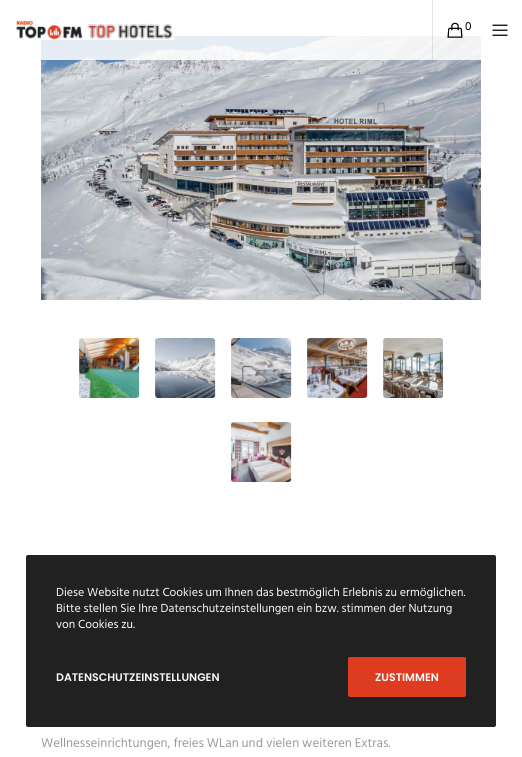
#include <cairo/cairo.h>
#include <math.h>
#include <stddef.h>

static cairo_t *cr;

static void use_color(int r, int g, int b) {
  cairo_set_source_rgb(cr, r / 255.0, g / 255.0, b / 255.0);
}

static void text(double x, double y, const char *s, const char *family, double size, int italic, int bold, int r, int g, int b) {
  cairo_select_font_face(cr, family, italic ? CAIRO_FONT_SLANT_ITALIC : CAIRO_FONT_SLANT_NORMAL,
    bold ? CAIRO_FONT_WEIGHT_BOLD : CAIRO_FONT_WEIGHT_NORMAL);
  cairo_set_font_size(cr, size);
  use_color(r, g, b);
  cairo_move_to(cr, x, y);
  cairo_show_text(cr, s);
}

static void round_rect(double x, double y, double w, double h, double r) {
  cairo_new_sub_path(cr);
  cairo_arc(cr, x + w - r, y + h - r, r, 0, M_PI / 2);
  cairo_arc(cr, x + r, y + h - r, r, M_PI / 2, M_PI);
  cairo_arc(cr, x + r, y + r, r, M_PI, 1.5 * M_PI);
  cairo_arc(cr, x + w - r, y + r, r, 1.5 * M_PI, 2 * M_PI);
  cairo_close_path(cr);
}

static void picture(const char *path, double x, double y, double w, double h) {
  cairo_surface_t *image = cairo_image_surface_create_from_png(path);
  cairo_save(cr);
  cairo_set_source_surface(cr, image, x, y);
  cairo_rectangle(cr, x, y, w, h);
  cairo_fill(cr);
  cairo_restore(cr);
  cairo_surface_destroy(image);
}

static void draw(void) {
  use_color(255, 255, 255);
  cairo_paint(cr);
  picture("img_04.png", 41, 36, 440, 264);
  cairo_set_source_rgba(cr, 1, 1, 1, 0.85);
  cairo_rectangle(cr, 41, 36, 440, 24);
  cairo_fill(cr);
  picture("img_01.png", 16, 20, 158, 20);
  cairo_set_source_rgba(cr, 0, 0, 0, 0.1);
  cairo_rectangle(cr, 432, 0, 1, 60);
  cairo_fill(cr);
  picture("img_02.png", 447, 22, 16, 16);
  picture("img_03.png", 492, 24, 16, 12);
  picture("img_05.png", 79, 338, 61, 60);
  picture("img_06.png", 155, 338, 61, 60);
  picture("img_07.png", 231, 338, 61, 60);
  picture("img_08.png", 307, 338, 61, 60);
  picture("img_09.png", 383, 338, 60, 60);
  picture("img_10.png", 231, 422, 61, 60);
  cairo_set_source_rgba(cr, 0, 0, 0, 0.87);
  round_rect(26, 555, 470, 172, 2);
  cairo_fill(cr);
  cairo_set_source_rgba(cr, 0.89, 0.239, 0.125, 0.97);
  round_rect(348, 657, 118, 40, 2);
  cairo_fill(cr);
  text(465, 30, "0", "Hind Siliguri", 12, 0, 0, 0, 0, 0);
  text(41, 747, "Wellnesseinrichtungen, freies WLan und vielen weiteren Extras.", "Hind Siliguri", 13, 0, 0, 153, 153, 153);
  text(56, 596, "Diese Website nutzt Cookies um Ihnen das bestmöglich Erlebnis zu ermöglichen.", "Hind Siliguri", 12, 0, 0, 248, 248, 248);
  text(56, 612, "Bitte stellen Sie Ihre Datenschutzeinstellungen ein bzw. stimmen der Nutzung", "Hind Siliguri", 12, 0, 0, 248, 248, 248);
  text(56, 628, "von Cookies zu.", "Hind Siliguri", 12, 0, 0, 255, 255, 255);
  text(56, 681, "DATENSCHUTZEINSTELLUNGEN", "Poppins SemiBold", 11, 0, 0, 248, 248, 248);
  text(375, 681, "ZUSTIMMEN", "Poppins SemiBold", 11, 0, 0, 255, 255, 255);
}

int main(void) {
  cairo_surface_t *surface = cairo_image_surface_create(CAIRO_FORMAT_RGB24, 522, 757);
  cr = cairo_create(surface);
  cairo_font_options_t *options = cairo_font_options_create();
  cairo_font_options_set_hint_metrics(options, CAIRO_HINT_METRICS_OFF);
  cairo_font_options_set_hint_style(options, CAIRO_HINT_STYLE_NONE);
  cairo_set_font_options(cr, options);
  cairo_set_miter_limit(cr, 4);
  draw();
  cairo_surface_write_to_png(surface, "out.png");
  cairo_font_options_destroy(options);
  cairo_destroy(cr);
  cairo_surface_destroy(surface);
  return 0;
}
